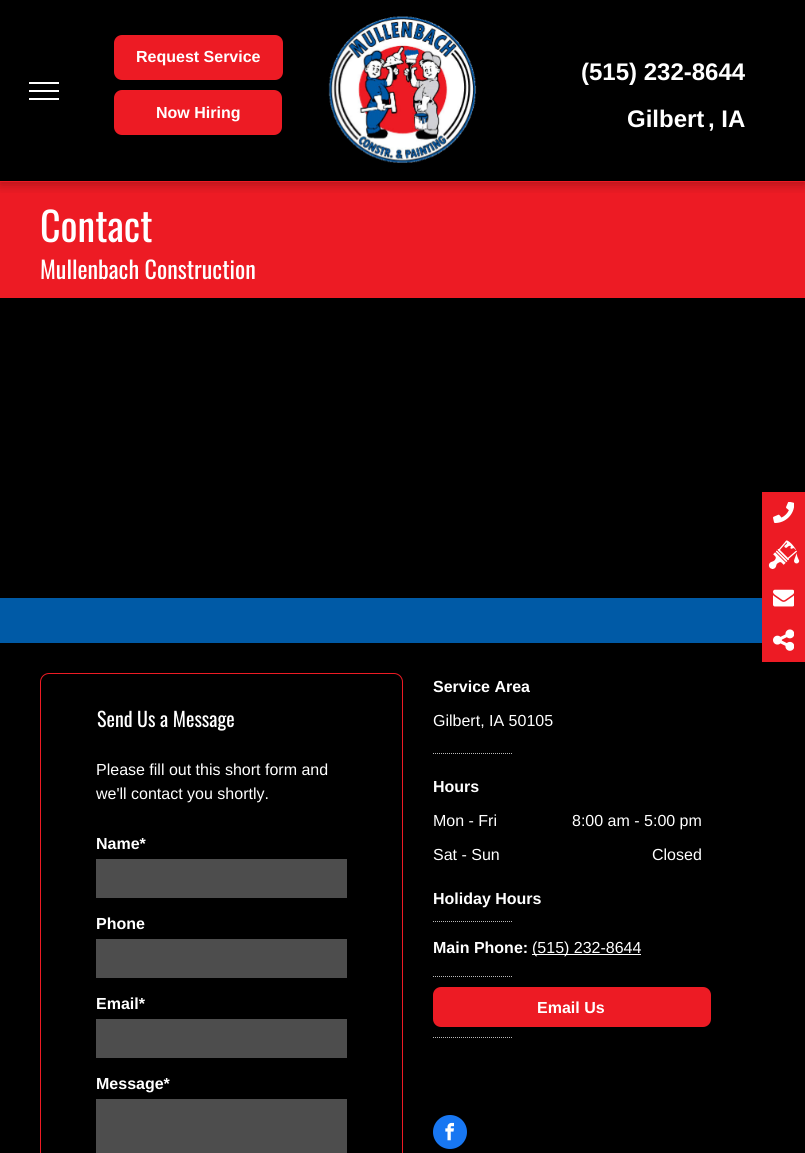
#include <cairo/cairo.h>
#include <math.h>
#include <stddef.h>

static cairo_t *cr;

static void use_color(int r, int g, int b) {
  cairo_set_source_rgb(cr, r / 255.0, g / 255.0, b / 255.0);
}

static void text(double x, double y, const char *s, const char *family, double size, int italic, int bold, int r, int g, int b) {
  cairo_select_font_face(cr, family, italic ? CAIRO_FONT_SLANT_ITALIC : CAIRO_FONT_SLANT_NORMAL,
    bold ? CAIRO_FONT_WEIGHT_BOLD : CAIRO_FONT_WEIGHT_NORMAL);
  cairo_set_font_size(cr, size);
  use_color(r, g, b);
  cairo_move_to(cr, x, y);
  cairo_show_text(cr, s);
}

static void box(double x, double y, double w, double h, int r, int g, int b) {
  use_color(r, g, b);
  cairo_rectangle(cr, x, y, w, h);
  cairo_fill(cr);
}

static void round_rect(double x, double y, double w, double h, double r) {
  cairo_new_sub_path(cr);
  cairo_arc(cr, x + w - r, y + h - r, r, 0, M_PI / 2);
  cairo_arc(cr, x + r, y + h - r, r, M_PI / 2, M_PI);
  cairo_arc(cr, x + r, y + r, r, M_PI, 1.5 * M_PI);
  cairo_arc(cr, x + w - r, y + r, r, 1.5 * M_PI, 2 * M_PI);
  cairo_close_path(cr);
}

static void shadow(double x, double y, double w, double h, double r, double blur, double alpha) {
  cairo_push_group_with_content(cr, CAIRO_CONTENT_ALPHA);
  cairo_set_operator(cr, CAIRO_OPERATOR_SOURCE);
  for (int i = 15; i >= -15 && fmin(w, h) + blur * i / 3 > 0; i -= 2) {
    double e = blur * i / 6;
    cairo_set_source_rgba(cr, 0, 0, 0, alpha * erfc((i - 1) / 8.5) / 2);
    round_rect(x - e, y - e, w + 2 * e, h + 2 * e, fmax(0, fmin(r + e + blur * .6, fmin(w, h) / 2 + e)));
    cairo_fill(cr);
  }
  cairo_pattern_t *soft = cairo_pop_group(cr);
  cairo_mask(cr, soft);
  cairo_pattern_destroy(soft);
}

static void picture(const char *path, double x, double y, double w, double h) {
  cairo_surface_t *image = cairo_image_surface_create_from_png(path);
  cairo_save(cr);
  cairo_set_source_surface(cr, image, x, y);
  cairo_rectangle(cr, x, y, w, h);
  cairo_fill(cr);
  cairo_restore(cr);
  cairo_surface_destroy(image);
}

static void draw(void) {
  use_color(0, 0, 0);
  cairo_paint(cr);
  box(0, 182, 805, 116, 237, 27, 36);
  cairo_save(cr);
  cairo_rectangle(cr, 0, 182, 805, 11);
  cairo_clip(cr);
  use_color(0, 0, 0);
  shadow(0, 3, 805, 182, 0, 5.5, 0.25);
  cairo_restore(cr);
  box(29, 82, 30, 2, 255, 255, 255);
  box(29, 90, 30, 2, 255, 255, 255);
  box(29, 98, 30, 2, 255, 255, 255);
  box(0, 181, 805, 1, 237, 27, 36);
  round_rect(115, 36, 167, 43, 7);
  cairo_fill_preserve(cr);
  cairo_stroke(cr);
  round_rect(115, 91, 166, 43, 7);
  cairo_fill_preserve(cr);
  cairo_stroke(cr);
  picture("img_01.png", 328, 16, 149, 147);
  box(0, 598, 762, 45, 0, 90, 166);
  round_rect(40.5, 673.5, 362, 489, 8.5);
  use_color(237, 27, 36);
  cairo_set_line_width(cr, 1);
  cairo_stroke(cr);
  box(96, 859, 251, 39, 77, 77, 77);
  box(96, 939, 251, 39, 77, 77, 77);
  box(96, 1019, 251, 39, 77, 77, 77);
  box(96, 1099, 251, 54, 77, 77, 77);
  cairo_new_path(cr);
  cairo_move_to(cr, 433, 753.5);
  cairo_line_to(cr, 513, 753.5);
  use_color(185, 185, 185);
  cairo_set_dash(cr, (double[]){1, 1}, 2, 0);
  cairo_stroke(cr);
  cairo_new_path(cr);
  cairo_move_to(cr, 433, 921.5);
  cairo_line_to(cr, 513, 921.5);
  cairo_stroke(cr);
  box(532, 954, 109, 1, 255, 255, 255);
  cairo_new_path(cr);
  cairo_move_to(cr, 433, 976.5);
  cairo_line_to(cr, 513, 976.5);
  use_color(185, 185, 185);
  cairo_stroke(cr);
  use_color(237, 27, 36);
  round_rect(434, 988, 276, 38, 7);
  cairo_fill_preserve(cr);
  cairo_set_line_width(cr, 2);
  cairo_set_dash(cr, NULL, 0, 0);
  cairo_stroke(cr);
  cairo_new_path(cr);
  cairo_move_to(cr, 433, 1037.5);
  cairo_line_to(cr, 513, 1037.5);
  use_color(185, 185, 185);
  cairo_set_line_width(cr, 1);
  cairo_set_dash(cr, (double[]){1, 1}, 2, 0);
  cairo_stroke(cr);
  use_color(24, 119, 242);
  cairo_arc(cr, 450, 1132, 17, 0, 2 * M_PI);
  cairo_fill(cr);
  picture("img_02.png", 445, 1122, 9, 19);
  box(762, 492, 43, 170, 237, 27, 36);
  picture("img_03.png", 773, 502, 21, 21);
  picture("img_04.png", 768, 540, 32, 29);
  picture("img_05.png", 773, 589, 21, 18);
  picture("img_06.png", 773, 629, 21, 22);
  text(136, 62, "Request Service", "Liberation Sans", 16, 0, 1, 255, 255, 255);
  text(156, 118, "Now Hiring", "Liberation Sans", 16, 0, 1, 255, 255, 255);
  text(581, 80, "(515) 232-8644", "Liberation Sans", 24, 0, 1, 255, 255, 255);
  text(627, 127, "Gilbert", "Liberation Sans", 24, 0, 1, 255, 255, 255);
  text(708, 127, ", IA", "Liberation Sans", 24, 0, 1, 255, 255, 255);
  text(40, 242, "Contact", "Oswald", 40, 0, 0, 255, 255, 255);
  text(40, 279, "Mullenbach Construction", "Oswald", 24, 0, 0, 255, 255, 255);
  text(97, 727, "Send Us a Message", "Oswald", 20, 0, 0, 255, 255, 255);
  text(96, 775, "Please fill out this short form and", "Liberation Sans", 16, 0, 0, 255, 255, 255);
  text(96, 799, "we'll contact you shortly.", "Liberation Sans", 16, 0, 0, 255, 255, 255);
  text(96, 849, "Name*", "Liberation Sans", 16, 0, 1, 255, 255, 255);
  text(96, 929, "Phone", "Liberation Sans", 16, 0, 1, 255, 255, 255);
  text(96, 1009, "Email*", "Liberation Sans", 16, 0, 1, 255, 255, 255);
  text(96, 1089, "Message*", "Liberation Sans", 16, 0, 1, 255, 255, 255);
  text(433, 692, "Service Area", "Liberation Sans", 16, 0, 1, 255, 255, 255);
  text(433, 726, "Gilbert, IA 50105", "Liberation Sans", 16, 0, 0, 255, 255, 255);
  text(433, 792, "Hours", "Liberation Sans", 16, 0, 1, 255, 255, 255);
  text(433, 826, "Mon - Fri", "Liberation Sans", 16, 0, 0, 255, 255, 255);
  text(572, 826, "8:00 am - 5:00 pm", "Liberation Sans", 16, 0, 0, 255, 255, 255);
  text(433, 860, "Sat - Sun", "Liberation Sans", 16, 0, 0, 255, 255, 255);
  text(652, 860, "Closed", "Liberation Sans", 16, 0, 0, 255, 255, 255);
  text(433, 904, "Holiday Hours", "Liberation Sans", 16, 0, 1, 255, 255, 255);
  text(433, 953, "Main Phone:", "Liberation Sans", 16, 0, 1, 255, 255, 255);
  text(532, 953, "(515) 232-8644", "Liberation Sans", 16, 0, 0, 255, 255, 255);
  text(537, 1013, "Email Us", "Liberation Sans", 16, 0, 1, 255, 255, 255);
}

int main(void) {
  cairo_surface_t *surface = cairo_image_surface_create(CAIRO_FORMAT_RGB24, 805, 1153);
  cr = cairo_create(surface);
  cairo_font_options_t *options = cairo_font_options_create();
  cairo_font_options_set_hint_metrics(options, CAIRO_HINT_METRICS_OFF);
  cairo_font_options_set_hint_style(options, CAIRO_HINT_STYLE_NONE);
  cairo_set_font_options(cr, options);
  cairo_set_miter_limit(cr, 4);
  draw();
  cairo_surface_write_to_png(surface, "out.png");
  cairo_font_options_destroy(options);
  cairo_destroy(cr);
  cairo_surface_destroy(surface);
  return 0;
}
